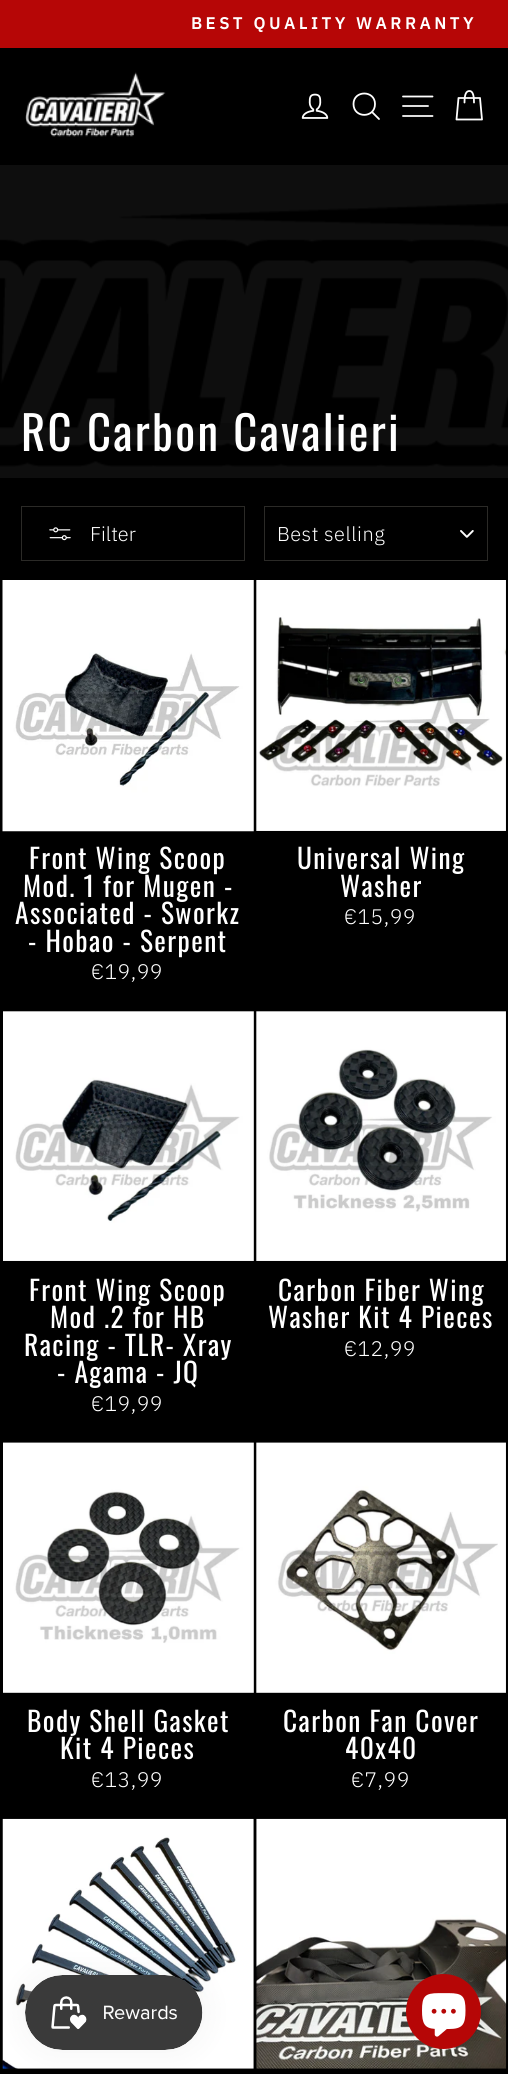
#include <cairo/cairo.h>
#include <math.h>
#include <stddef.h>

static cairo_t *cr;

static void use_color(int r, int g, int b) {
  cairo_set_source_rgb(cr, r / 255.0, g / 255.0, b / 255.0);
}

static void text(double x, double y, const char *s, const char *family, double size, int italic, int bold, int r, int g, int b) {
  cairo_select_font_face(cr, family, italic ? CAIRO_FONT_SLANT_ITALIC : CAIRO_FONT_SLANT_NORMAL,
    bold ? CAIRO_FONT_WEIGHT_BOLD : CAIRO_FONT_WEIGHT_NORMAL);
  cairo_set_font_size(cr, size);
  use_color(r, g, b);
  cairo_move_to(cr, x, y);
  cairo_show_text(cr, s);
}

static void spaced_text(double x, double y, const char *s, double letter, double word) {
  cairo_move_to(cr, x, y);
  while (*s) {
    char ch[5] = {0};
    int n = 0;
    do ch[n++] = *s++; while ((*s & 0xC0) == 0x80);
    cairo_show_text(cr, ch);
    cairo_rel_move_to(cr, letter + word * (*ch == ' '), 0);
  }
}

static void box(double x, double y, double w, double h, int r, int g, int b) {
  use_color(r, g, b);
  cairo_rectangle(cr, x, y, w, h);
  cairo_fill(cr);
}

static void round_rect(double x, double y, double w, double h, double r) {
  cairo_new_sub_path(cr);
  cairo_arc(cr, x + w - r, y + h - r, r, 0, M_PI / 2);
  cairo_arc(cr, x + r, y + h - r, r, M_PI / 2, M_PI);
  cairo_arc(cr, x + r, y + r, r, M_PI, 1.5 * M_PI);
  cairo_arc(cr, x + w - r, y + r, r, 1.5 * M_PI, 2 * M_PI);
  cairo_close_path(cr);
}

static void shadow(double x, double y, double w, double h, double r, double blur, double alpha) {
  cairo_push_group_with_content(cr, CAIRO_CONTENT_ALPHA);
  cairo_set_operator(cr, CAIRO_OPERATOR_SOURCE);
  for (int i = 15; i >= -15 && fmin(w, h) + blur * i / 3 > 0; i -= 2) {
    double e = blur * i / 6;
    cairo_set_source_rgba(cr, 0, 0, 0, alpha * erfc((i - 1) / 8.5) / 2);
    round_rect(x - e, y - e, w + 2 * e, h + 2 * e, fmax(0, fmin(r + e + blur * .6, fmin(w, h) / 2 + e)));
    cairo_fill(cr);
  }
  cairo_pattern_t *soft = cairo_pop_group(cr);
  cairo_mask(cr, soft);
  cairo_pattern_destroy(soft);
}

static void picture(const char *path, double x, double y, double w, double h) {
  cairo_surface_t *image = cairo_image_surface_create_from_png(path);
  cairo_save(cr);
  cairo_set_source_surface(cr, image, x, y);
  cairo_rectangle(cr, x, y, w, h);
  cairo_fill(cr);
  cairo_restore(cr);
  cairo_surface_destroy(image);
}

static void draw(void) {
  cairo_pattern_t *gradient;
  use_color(0, 0, 0);
  cairo_paint(cr);
  box(0, 0, 508, 48, 182, 6, 6);
  picture("img_01.png", 25, 72, 141, 65);
  picture("img_02.png", 301, 93, 28, 26);
  cairo_new_path(cr);
  cairo_move_to(cr, 375, 104);
  cairo_curve_to(cr, 375, 118.5, 353.5, 118.5, 353.5, 104);
  cairo_curve_to(cr, 353.5, 90, 375, 90, 375, 104);
  cairo_close_path(cr);
  cairo_move_to(cr, 379, 119);
  cairo_line_to(cr, 372, 112);
  use_color(255, 255, 255);
  cairo_set_line_width(cr, 1.8);
  cairo_set_line_cap(cr, CAIRO_LINE_CAP_ROUND);
  cairo_set_line_join(cr, CAIRO_LINE_JOIN_ROUND);
  cairo_stroke(cr);
  cairo_new_path(cr);
  cairo_move_to(cr, 403, 96.5);
  cairo_line_to(cr, 432.5, 96.5);
  cairo_move_to(cr, 403, 106);
  cairo_line_to(cr, 428, 106);
  cairo_move_to(cr, 403, 116);
  cairo_line_to(cr, 432.5, 116);
  cairo_stroke(cr);
  cairo_new_path(cr);
  cairo_move_to(cr, 464.5, 102.5);
  cairo_curve_to(cr, 464.5, 93.5, 466.5, 91, 469.5, 91);
  cairo_curve_to(cr, 472, 91, 474, 93.5, 474, 102.5);
  cairo_move_to(cr, 458.5, 98);
  cairo_line_to(cr, 480, 98);
  cairo_line_to(cr, 482, 119.5);
  cairo_line_to(cr, 456.5, 119.5);
  cairo_close_path(cr);
  cairo_stroke(cr);
  box(0, 165, 508, 313, 14, 14, 14);
  picture("img_03.png", 0, 203, 508, 264);
  gradient = cairo_pattern_create_radial(0, 0, 0, 0, 0, 1);
  cairo_pattern_set_matrix(gradient, &(cairo_matrix_t){1.0 / 623, 0, 0, 1.0 / 217, -1.0 * 212 / 623, -1.0 * 431 / 217});
  cairo_pattern_add_color_stop_rgba(gradient, 0, 0, 0, 0, 0.2);
  cairo_pattern_add_color_stop_rgba(gradient, 0.6, 0, 0, 0, 0);
  cairo_set_source(cr, gradient);
  cairo_pattern_destroy(gradient);
  cairo_rectangle(cr, 186, 423, 52, 17);
  cairo_fill(cr);
  cairo_rectangle(cr, 21.5, 506.5, 223, 54);
  use_color(43, 42, 39);
  cairo_set_line_width(cr, 1);
  cairo_set_line_cap(cr, CAIRO_LINE_CAP_BUTT);
  cairo_set_line_join(cr, CAIRO_LINE_JOIN_MITER);
  cairo_stroke(cr);
  picture("img_04.png", 49, 527, 22, 14);
  picture("img_05.png", 460, 530, 14, 8);
  cairo_rectangle(cr, 264.5, 506.5, 223, 54);
  cairo_stroke(cr);
  picture("img_06.png", 2, 580, 252, 252);
  picture("img_07.png", 256, 580, 250, 251);
  picture("img_08.png", 3, 1011, 251, 250);
  picture("img_09.png", 256, 1011, 250, 250);
  picture("img_10.png", 3, 1442, 251, 251);
  picture("img_11.png", 256, 1442, 250, 251);
  picture("img_12.png", 2, 1818, 252, 251);
  picture("img_13.png", 256, 1818, 251, 251);
  use_color(0, 0, 0);
  shadow(25, 1975, 178, 75, 37.5, 15.5, 0.05);
  picture("img_14.png", 25, 1975, 178, 75);
  use_color(182, 6, 6);
  cairo_arc(cr, 443.5, 2011.5, 37.5, 0, 2 * M_PI);
  cairo_fill(cr);
  picture("img_15.png", 422, 1993, 44, 44);
  cairo_select_font_face(cr, "IBM Plex Sans SemiBold", CAIRO_FONT_SLANT_NORMAL, CAIRO_FONT_WEIGHT_NORMAL);
  cairo_set_font_size(cr, 16.9);
  use_color(255, 255, 255);
  spaced_text(191, 29, "BEST QUALITY WARRANTY", 3.4, 0);
  cairo_select_font_face(cr, "Oswald", CAIRO_FONT_SLANT_NORMAL, CAIRO_FONT_WEIGHT_NORMAL);
  cairo_set_font_size(cr, 46.75);
  spaced_text(21, 451, "RC Carbon Cavalieri", 2.3, 0);
  text(90, 541, "Filter", "IBM Plex Sans Light", 20, 0, 0, 255, 255, 255);
  spaced_text(277, 541, "Best selling", 0.5, 0);
  cairo_select_font_face(cr, "Oswald", CAIRO_FONT_SLANT_NORMAL, CAIRO_FONT_WEIGHT_NORMAL);
  cairo_set_font_size(cr, 27.5);
  spaced_text(29, 869, "Front Wing Scoop", 1.4, 0);
  spaced_text(23, 897, "Mod. 1 for Mugen -", 1.4, 0);
  spaced_text(15, 924, "Associated - Sworkz", 1.4, 0);
  spaced_text(28, 952, "- Hobao - Serpent", 1.4, 0);
  cairo_select_font_face(cr, "IBM Plex Sans Light", CAIRO_FONT_SLANT_NORMAL, CAIRO_FONT_WEIGHT_NORMAL);
  cairo_set_font_size(cr, 21);
  spaced_text(91, 979, "€19,99", 0.5, 0);
  cairo_select_font_face(cr, "Oswald", CAIRO_FONT_SLANT_NORMAL, CAIRO_FONT_WEIGHT_NORMAL);
  cairo_set_font_size(cr, 27.5);
  spaced_text(297, 869, "Universal Wing", 1.4, 0);
  spaced_text(340, 897, "Washer", 1.4, 0);
  cairo_select_font_face(cr, "IBM Plex Sans Light", CAIRO_FONT_SLANT_NORMAL, CAIRO_FONT_WEIGHT_NORMAL);
  cairo_set_font_size(cr, 21);
  spaced_text(344, 924, "€15,99", 0.5, 0);
  cairo_select_font_face(cr, "Oswald", CAIRO_FONT_SLANT_NORMAL, CAIRO_FONT_WEIGHT_NORMAL);
  cairo_set_font_size(cr, 27.5);
  spaced_text(29, 1301, "Front Wing Scoop", 1.4, 0);
  spaced_text(50, 1328, "Mod .2 for HB", 1.4, 0);
  spaced_text(24, 1356, "Racing - TLR- Xray", 1.4, 0);
  spaced_text(57, 1383, "- Agama - JQ", 1.4, 0);
  cairo_select_font_face(cr, "IBM Plex Sans Light", CAIRO_FONT_SLANT_NORMAL, CAIRO_FONT_WEIGHT_NORMAL);
  cairo_set_font_size(cr, 21);
  spaced_text(91, 1411, "€19,99", 0.5, 0);
  cairo_select_font_face(cr, "Oswald", CAIRO_FONT_SLANT_NORMAL, CAIRO_FONT_WEIGHT_NORMAL);
  cairo_set_font_size(cr, 27.5);
  spaced_text(278, 1301, "Carbon Fiber Wing", 1.4, 0);
  spaced_text(268, 1328, "Washer Kit 4 Pieces", 1.4, 0);
  cairo_select_font_face(cr, "IBM Plex Sans Light", CAIRO_FONT_SLANT_NORMAL, CAIRO_FONT_WEIGHT_NORMAL);
  cairo_set_font_size(cr, 21);
  spaced_text(344, 1356, "€12,99", 0.5, 0);
  cairo_select_font_face(cr, "Oswald", CAIRO_FONT_SLANT_NORMAL, CAIRO_FONT_WEIGHT_NORMAL);
  cairo_set_font_size(cr, 27.5);
  spaced_text(27, 1732, "Body Shell Gasket", 1.4, 0);
  spaced_text(60, 1759, "Kit 4 Pieces", 1.4, 0);
  cairo_select_font_face(cr, "IBM Plex Sans Light", CAIRO_FONT_SLANT_NORMAL, CAIRO_FONT_WEIGHT_NORMAL);
  cairo_set_font_size(cr, 21);
  spaced_text(91, 1787, "€13,99", 0.5, 0);
  cairo_select_font_face(cr, "Oswald", CAIRO_FONT_SLANT_NORMAL, CAIRO_FONT_WEIGHT_NORMAL);
  cairo_set_font_size(cr, 27.5);
  spaced_text(283, 1732, "Carbon Fan Cover", 1.4, 0);
  spaced_text(345, 1759, "40x40", 1.4, 0);
  cairo_select_font_face(cr, "IBM Plex Sans Light", CAIRO_FONT_SLANT_NORMAL, CAIRO_FONT_WEIGHT_NORMAL);
  cairo_set_font_size(cr, 21);
  spaced_text(351, 1787, "€7,99", 0.5, 0);
}

int main(void) {
  cairo_surface_t *surface = cairo_image_surface_create(CAIRO_FORMAT_RGB24, 508, 2074);
  cr = cairo_create(surface);
  cairo_font_options_t *options = cairo_font_options_create();
  cairo_font_options_set_hint_metrics(options, CAIRO_HINT_METRICS_OFF);
  cairo_font_options_set_hint_style(options, CAIRO_HINT_STYLE_NONE);
  cairo_set_font_options(cr, options);
  cairo_set_miter_limit(cr, 4);
  draw();
  cairo_surface_write_to_png(surface, "out.png");
  cairo_font_options_destroy(options);
  cairo_destroy(cr);
  cairo_surface_destroy(surface);
  return 0;
}
